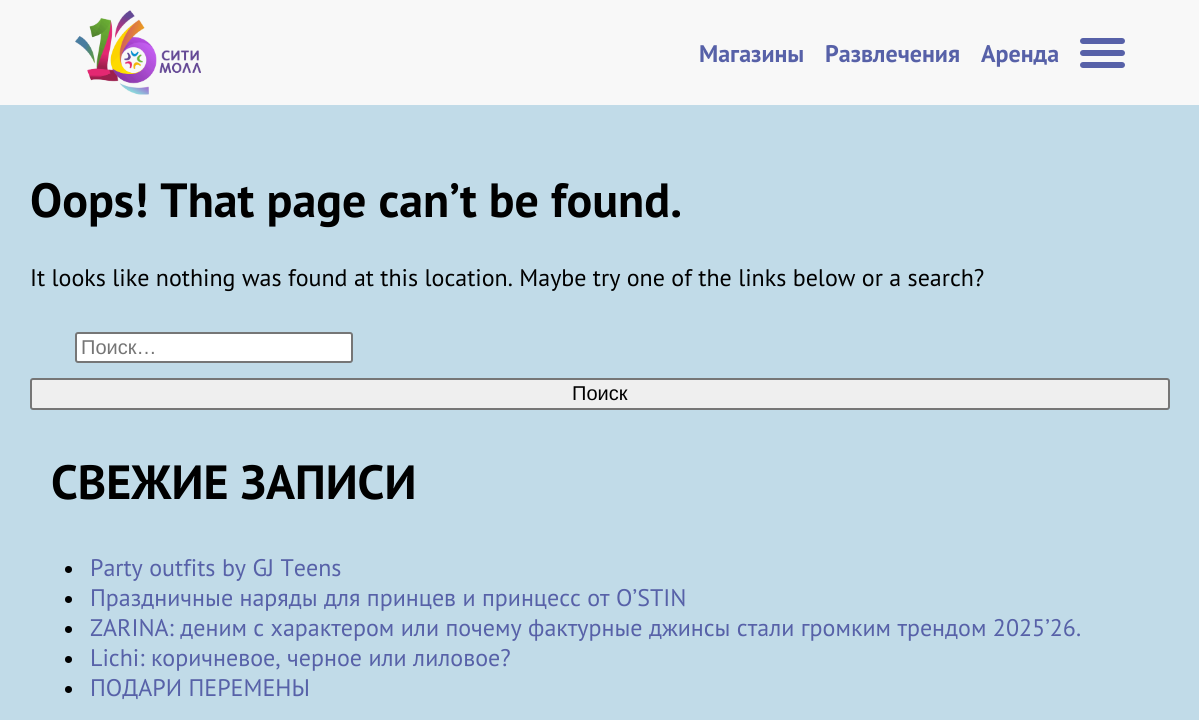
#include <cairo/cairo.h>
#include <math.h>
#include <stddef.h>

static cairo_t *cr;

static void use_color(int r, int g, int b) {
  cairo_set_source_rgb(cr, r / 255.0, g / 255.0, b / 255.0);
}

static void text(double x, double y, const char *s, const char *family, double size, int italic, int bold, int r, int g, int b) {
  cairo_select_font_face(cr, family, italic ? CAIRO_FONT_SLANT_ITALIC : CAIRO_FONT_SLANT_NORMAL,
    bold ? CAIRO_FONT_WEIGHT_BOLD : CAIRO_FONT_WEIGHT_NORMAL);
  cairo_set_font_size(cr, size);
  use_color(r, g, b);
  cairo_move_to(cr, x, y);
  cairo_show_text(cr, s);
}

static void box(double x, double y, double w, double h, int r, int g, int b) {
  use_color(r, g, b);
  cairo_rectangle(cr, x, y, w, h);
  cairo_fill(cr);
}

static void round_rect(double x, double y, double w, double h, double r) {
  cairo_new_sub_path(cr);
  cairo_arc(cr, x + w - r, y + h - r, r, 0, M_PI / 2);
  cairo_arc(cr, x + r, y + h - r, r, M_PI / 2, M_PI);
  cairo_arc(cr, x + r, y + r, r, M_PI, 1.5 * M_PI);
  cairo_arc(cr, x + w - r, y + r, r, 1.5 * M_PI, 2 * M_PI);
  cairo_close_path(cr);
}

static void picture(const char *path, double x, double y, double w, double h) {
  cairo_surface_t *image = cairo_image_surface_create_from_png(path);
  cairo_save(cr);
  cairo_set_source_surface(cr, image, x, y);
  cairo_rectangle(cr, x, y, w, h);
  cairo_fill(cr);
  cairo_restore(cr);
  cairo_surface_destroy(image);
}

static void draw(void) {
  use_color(193, 219, 232);
  cairo_paint(cr);
  box(0, 0, 1199, 105, 248, 248, 248);
  picture("img_01.png", 75, 10, 126, 85);
  use_color(87, 97, 168);
  round_rect(1080, 38, 45, 6, 3);
  cairo_fill(cr);
  round_rect(1080, 50, 45, 6, 3);
  cairo_fill(cr);
  round_rect(1080, 62, 45, 6, 3);
  cairo_fill(cr);
  use_color(255, 255, 255);
  round_rect(76, 333, 276, 29, 2);
  cairo_fill_preserve(cr);
  use_color(118, 118, 118);
  cairo_stroke(cr);
  use_color(239, 239, 239);
  round_rect(31, 379, 1138, 30, 2);
  cairo_fill_preserve(cr);
  use_color(118, 118, 118);
  cairo_stroke(cr);
  use_color(0, 0, 0);
  cairo_arc(cr, 68.5, 569.5, 3.5, 0, 2 * M_PI);
  cairo_fill(cr);
  cairo_arc(cr, 68.5, 599.5, 3.5, 0, 2 * M_PI);
  cairo_fill(cr);
  cairo_arc(cr, 68.5, 629.5, 3.5, 0, 2 * M_PI);
  cairo_fill(cr);
  cairo_arc(cr, 68.5, 659.5, 3.5, 0, 2 * M_PI);
  cairo_fill(cr);
  cairo_arc(cr, 68.5, 689.5, 3.5, 0, 2 * M_PI);
  cairo_fill(cr);
  text(699, 62, "Магазины", "PT Sans", 24, 0, 1, 87, 97, 168);
  text(825, 62, "Развлечения", "PT Sans", 24, 0, 1, 87, 97, 168);
  text(981, 62, "Аренда", "PT Sans", 24, 0, 1, 87, 97, 168);
  text(30, 217, "Oops! That page can’t be found.", "PT Sans", 48, 0, 1, 0, 0, 0);
  text(30, 286, "It looks like nothing was found at this location. Maybe try one of the links below or a search?", "PT Sans", 24, 0, 0, 0, 0, 0);
  text(81, 354, "Поиск…", "Liberation Sans", 20, 0, 0, 117, 117, 117);
  text(572, 400, "Поиск", "Liberation Sans", 20, 0, 0, 0, 0, 0);
  text(51, 499, "СВЕЖИЕ ЗАПИСИ", "PT Sans", 48, 0, 1, 0, 0, 0);
  text(90, 576, "Party outfits by GJ Teens", "PT Sans", 24, 0, 0, 87, 97, 168);
  text(90, 606, "Праздничные наряды для принцев и принцесс от O’STIN", "PT Sans", 24, 0, 0, 87, 97, 168);
  text(90, 636, "ZARINА: деним с характером или почему фактурные джинсы стали громким трендом 2025’26.", "PT Sans", 24, 0, 0, 87, 97, 168);
  text(90, 666, "Lichi: коричневое, черное или лиловое?", "PT Sans", 24, 0, 0, 87, 97, 168);
  text(90, 696, "ПОДАРИ ПЕРЕМЕНЫ", "PT Sans", 24, 0, 0, 87, 97, 168);
}

int main(void) {
  cairo_surface_t *surface = cairo_image_surface_create(CAIRO_FORMAT_RGB24, 1199, 720);
  cr = cairo_create(surface);
  cairo_font_options_t *options = cairo_font_options_create();
  cairo_font_options_set_hint_metrics(options, CAIRO_HINT_METRICS_OFF);
  cairo_font_options_set_hint_style(options, CAIRO_HINT_STYLE_NONE);
  cairo_set_font_options(cr, options);
  cairo_set_miter_limit(cr, 4);
  draw();
  cairo_surface_write_to_png(surface, "out.png");
  cairo_font_options_destroy(options);
  cairo_destroy(cr);
  cairo_surface_destroy(surface);
  return 0;
}
